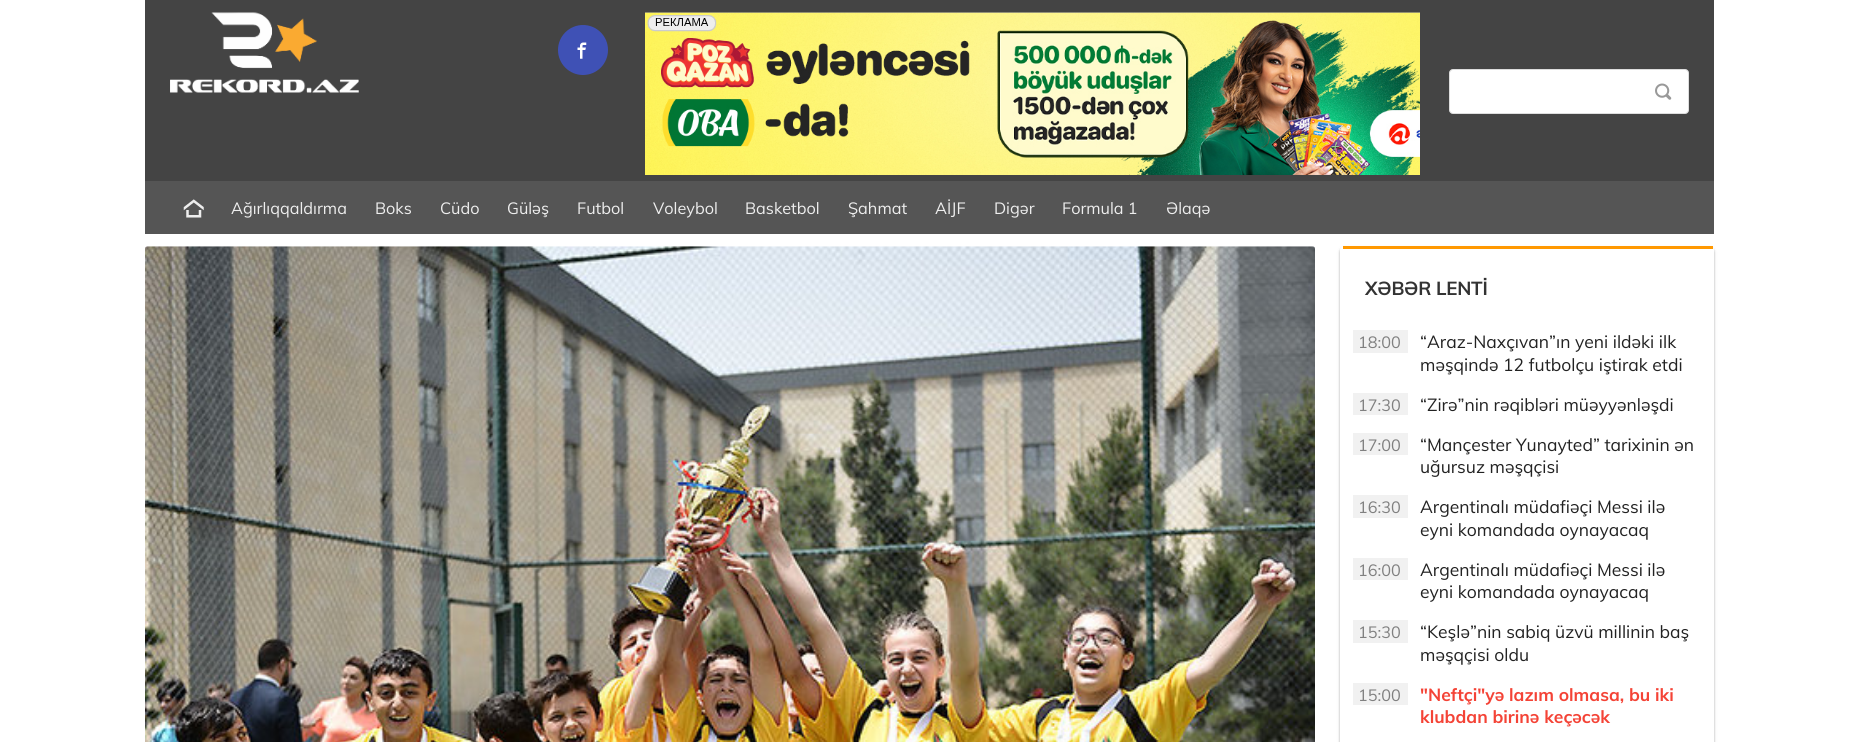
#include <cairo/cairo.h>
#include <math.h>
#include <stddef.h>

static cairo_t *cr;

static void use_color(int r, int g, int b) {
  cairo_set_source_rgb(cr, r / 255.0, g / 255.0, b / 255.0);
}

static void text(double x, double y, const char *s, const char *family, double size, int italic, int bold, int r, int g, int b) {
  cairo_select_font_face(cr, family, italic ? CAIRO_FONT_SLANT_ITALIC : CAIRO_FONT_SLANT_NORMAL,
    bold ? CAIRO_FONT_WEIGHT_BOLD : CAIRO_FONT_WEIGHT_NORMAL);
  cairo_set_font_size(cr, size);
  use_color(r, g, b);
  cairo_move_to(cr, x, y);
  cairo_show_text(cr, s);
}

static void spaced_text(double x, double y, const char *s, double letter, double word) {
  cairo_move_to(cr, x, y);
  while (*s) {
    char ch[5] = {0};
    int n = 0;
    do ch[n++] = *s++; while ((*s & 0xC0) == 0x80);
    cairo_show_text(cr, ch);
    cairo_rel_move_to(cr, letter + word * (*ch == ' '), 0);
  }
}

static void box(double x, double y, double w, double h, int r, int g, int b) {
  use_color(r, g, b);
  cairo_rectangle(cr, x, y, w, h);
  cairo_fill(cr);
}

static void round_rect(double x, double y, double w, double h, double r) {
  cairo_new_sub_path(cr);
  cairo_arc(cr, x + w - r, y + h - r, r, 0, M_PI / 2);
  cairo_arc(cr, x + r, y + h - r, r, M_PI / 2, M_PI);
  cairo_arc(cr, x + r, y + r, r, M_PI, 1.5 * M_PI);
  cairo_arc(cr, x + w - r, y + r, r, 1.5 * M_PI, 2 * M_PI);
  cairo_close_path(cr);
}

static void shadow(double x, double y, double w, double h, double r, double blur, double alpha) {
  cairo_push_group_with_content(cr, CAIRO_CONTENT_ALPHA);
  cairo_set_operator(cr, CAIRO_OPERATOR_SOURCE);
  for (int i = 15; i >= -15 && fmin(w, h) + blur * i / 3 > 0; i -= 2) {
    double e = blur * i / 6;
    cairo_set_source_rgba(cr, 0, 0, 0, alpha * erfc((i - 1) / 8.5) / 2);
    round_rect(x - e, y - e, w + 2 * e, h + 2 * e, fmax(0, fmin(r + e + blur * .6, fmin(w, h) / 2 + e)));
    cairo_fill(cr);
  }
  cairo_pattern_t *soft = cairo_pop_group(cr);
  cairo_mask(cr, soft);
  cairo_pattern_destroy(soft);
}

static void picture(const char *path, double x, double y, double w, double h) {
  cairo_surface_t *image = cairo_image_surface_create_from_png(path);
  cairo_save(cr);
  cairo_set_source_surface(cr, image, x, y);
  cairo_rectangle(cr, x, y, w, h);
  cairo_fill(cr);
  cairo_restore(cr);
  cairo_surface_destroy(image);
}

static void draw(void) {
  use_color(255, 255, 255);
  cairo_paint(cr);
  box(145, 0, 1569, 181, 68, 68, 68);
  picture("img_01.png", 170, 12, 189, 81);
  use_color(63, 81, 181);
  cairo_arc(cr, 583, 50, 25, 0, 2 * M_PI);
  cairo_fill(cr);
  picture("img_02.png", 577, 42, 10, 17);
  picture("img_03.png", 645, 12, 775, 163);
  use_color(255, 255, 255);
  round_rect(1449.5, 69.5, 239, 44, 3.5);
  cairo_fill_preserve(cr);
  use_color(221, 221, 221);
  cairo_set_line_width(cr, 1);
  cairo_stroke(cr);
  picture("img_04.png", 1655, 83, 17, 17);
  box(145, 181, 1569, 53, 85, 85, 85);
  picture("img_05.png", 183, 199, 21, 19);
  picture("img_06.png", 145, 246, 1170, 496);
  use_color(0, 0, 0);
  shadow(1340, 248, 374, 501, 4, 1, 0.24);
  shadow(1340, 248, 374, 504, 4, 2, 0.12);
  use_color(255, 255, 255);
  round_rect(1340, 246, 374, 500, 4);
  cairo_fill(cr);
  box(1343, 246, 370, 3, 255, 152, 0);
  box(1353, 330, 55, 23, 241, 241, 241);
  box(1353, 393, 55, 22, 241, 241, 241);
  box(1353, 433, 55, 22, 241, 241, 241);
  box(1353, 495, 55, 23, 241, 241, 241);
  box(1353, 558, 55, 22, 241, 241, 241);
  box(1353, 620, 55, 23, 241, 241, 241);
  box(1353, 683, 55, 22, 241, 241, 241);
  text(231, 214, "Ağırlıqqaldırma", "Muli", 16.25, 0, 0, 238, 238, 238);
  text(375, 214, "Boks", "Muli", 16.25, 0, 0, 238, 238, 238);
  text(440, 214, "Cüdo", "Muli", 16.25, 0, 0, 238, 238, 238);
  text(507, 214, "Güləş", "Muli", 16.25, 0, 0, 238, 238, 238);
  text(577, 214, "Futbol", "Muli", 16.25, 0, 0, 238, 238, 238);
  text(653, 214, "Voleybol", "Muli", 16.25, 0, 0, 238, 238, 238);
  text(745, 214, "Basketbol", "Muli", 16.25, 0, 0, 238, 238, 238);
  text(848, 214, "Şahmat", "Muli", 16.25, 0, 0, 238, 238, 238);
  text(935, 214, "AİJF", "Muli", 16.25, 0, 0, 238, 238, 238);
  text(994, 214, "Digər", "Muli", 16.25, 0, 0, 238, 238, 238);
  text(1062, 214, "Formula 1", "Muli", 16.25, 0, 0, 238, 238, 238);
  text(1166, 214, "Əlaqə", "Muli", 16.25, 0, 0, 238, 238, 238);
  cairo_select_font_face(cr, "Muli", CAIRO_FONT_SLANT_NORMAL, CAIRO_FONT_WEIGHT_BOLD);
  cairo_set_font_size(cr, 18.75);
  use_color(51, 51, 51);
  spaced_text(1365, 295, "XƏBƏR LENTİ", -0.25, 0);
  text(1358, 348, "18:00", "Muli", 16.25, 0, 0, 128, 128, 128);
  text(1420, 348, "“Araz-Naxçıvan”ın yeni ildəki ilk", "Muli", 17.5, 0, 0, 34, 34, 34);
  text(1420, 371, "məşqində 12 futbolçu iştirak etdi", "Muli", 17.5, 0, 0, 34, 34, 34);
  text(1358, 411, "17:30", "Muli", 16.25, 0, 0, 128, 128, 128);
  text(1420, 411, "“Zirə”nin rəqibləri müəyyənləşdi", "Muli", 17.5, 0, 0, 34, 34, 34);
  text(1358, 451, "17:00", "Muli", 16.25, 0, 0, 128, 128, 128);
  text(1420, 451, "“Mançester Yunayted” tarixinin ən", "Muli", 17.5, 0, 0, 34, 34, 34);
  text(1420, 473, "uğursuz məşqçisi", "Muli", 17.5, 0, 0, 34, 34, 34);
  text(1358, 513, "16:30", "Muli", 16.25, 0, 0, 128, 128, 128);
  text(1420, 513, "Argentinalı müdafiəçi Messi ilə", "Muli", 17.5, 0, 0, 34, 34, 34);
  text(1420, 536, "eyni komandada oynayacaq", "Muli", 17.5, 0, 0, 34, 34, 34);
  text(1358, 576, "16:00", "Muli", 16.25, 0, 0, 128, 128, 128);
  text(1420, 576, "Argentinalı müdafiəçi Messi ilə", "Muli", 17.5, 0, 0, 34, 34, 34);
  text(1420, 598, "eyni komandada oynayacaq", "Muli", 17.5, 0, 0, 34, 34, 34);
  text(1358, 638, "15:30", "Muli", 16.25, 0, 0, 128, 128, 128);
  text(1420, 638, "“Keşlə”nin sabiq üzvü millinin baş", "Muli", 17.5, 0, 0, 34, 34, 34);
  text(1420, 661, "məşqçisi oldu", "Muli", 17.5, 0, 0, 34, 34, 34);
  text(1358, 701, "15:00", "Muli", 16.25, 0, 0, 128, 128, 128);
  text(1420, 701, "\"Neftçi\"yə lazım olmasa, bu iki", "Muli", 17.5, 0, 1, 244, 67, 54);
  text(1420, 723, "klubdan birinə keçəcək", "Muli", 17.5, 0, 1, 244, 67, 54);
}

int main(void) {
  cairo_surface_t *surface = cairo_image_surface_create(CAIRO_FORMAT_RGB24, 1857, 742);
  cr = cairo_create(surface);
  cairo_font_options_t *options = cairo_font_options_create();
  cairo_font_options_set_hint_metrics(options, CAIRO_HINT_METRICS_OFF);
  cairo_font_options_set_hint_style(options, CAIRO_HINT_STYLE_NONE);
  cairo_set_font_options(cr, options);
  cairo_set_miter_limit(cr, 4);
  draw();
  cairo_surface_write_to_png(surface, "out.png");
  cairo_font_options_destroy(options);
  cairo_destroy(cr);
  cairo_surface_destroy(surface);
  return 0;
}
